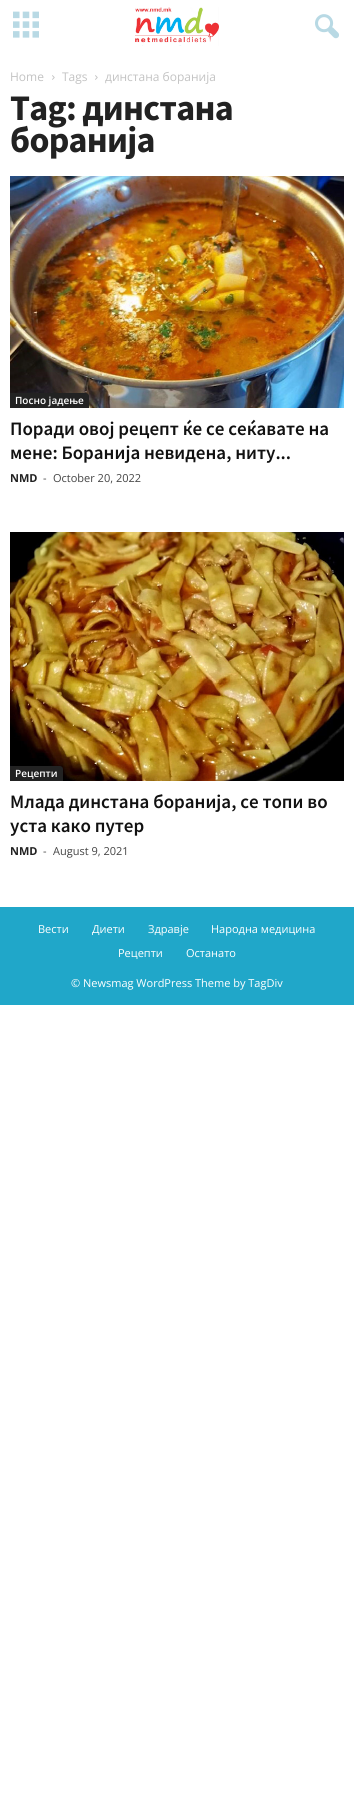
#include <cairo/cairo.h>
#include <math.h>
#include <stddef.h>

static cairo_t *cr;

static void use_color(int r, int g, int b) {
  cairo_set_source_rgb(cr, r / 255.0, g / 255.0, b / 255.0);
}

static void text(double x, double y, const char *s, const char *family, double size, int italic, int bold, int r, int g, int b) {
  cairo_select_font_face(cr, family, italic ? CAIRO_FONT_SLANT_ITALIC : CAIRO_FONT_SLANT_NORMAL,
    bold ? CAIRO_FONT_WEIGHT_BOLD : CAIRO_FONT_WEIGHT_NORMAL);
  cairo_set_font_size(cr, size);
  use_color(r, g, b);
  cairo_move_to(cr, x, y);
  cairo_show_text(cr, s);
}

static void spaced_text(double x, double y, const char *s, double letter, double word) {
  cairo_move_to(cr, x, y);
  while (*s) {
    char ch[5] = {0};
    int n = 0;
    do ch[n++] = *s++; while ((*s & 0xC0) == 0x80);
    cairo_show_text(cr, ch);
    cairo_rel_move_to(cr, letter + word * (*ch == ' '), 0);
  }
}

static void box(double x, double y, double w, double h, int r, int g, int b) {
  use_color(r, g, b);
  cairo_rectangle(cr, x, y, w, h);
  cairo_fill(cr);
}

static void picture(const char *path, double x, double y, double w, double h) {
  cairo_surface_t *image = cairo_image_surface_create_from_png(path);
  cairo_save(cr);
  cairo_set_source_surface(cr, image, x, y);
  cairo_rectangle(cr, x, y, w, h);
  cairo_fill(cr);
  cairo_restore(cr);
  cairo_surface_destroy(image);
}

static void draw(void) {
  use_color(255, 255, 255);
  cairo_paint(cr);
  picture("img_01.png", 13, 11, 26, 27);
  picture("img_02.png", 135, 7, 84, 39);
  picture("img_03.png", 315, 14, 24, 25);
  picture("img_04.png", 52, 75, 3, 5);
  picture("img_04.png", 95, 75, 3, 5);
  picture("img_05.png", 10, 176, 334, 232);
  use_color(34, 34, 34);
  cairo_new_path(cr);
  cairo_move_to(cr, 10, 393);
  cairo_line_to(cr, 86, 393);
  cairo_curve_to(cr, 87.5, 393, 89, 394.5, 89, 396);
  cairo_line_to(cr, 89, 408);
  cairo_line_to(cr, 10, 408);
  cairo_close_path(cr);
  cairo_fill(cr);
  picture("img_06.png", 10, 532, 334, 249);
  cairo_new_path(cr);
  cairo_move_to(cr, 10, 766);
  cairo_line_to(cr, 60, 766);
  cairo_curve_to(cr, 61.5, 766, 63, 767.5, 63, 769);
  cairo_line_to(cr, 63, 781);
  cairo_line_to(cr, 10, 781);
  cairo_close_path(cr);
  cairo_fill(cr);
  box(0, 907, 354, 98, 32, 167, 201);
  text(10, 81, "Home", "Open Sans", 12, 0, 0, 195, 195, 195);
  text(62, 81, "Tags", "Open Sans", 12, 0, 0, 195, 195, 195);
  text(105, 81, "динстана боранија", "Open Sans", 12, 0, 0, 195, 195, 195);
  cairo_select_font_face(cr, "Source Sans Pro", CAIRO_FONT_SLANT_NORMAL, CAIRO_FONT_WEIGHT_BOLD);
  cairo_set_font_size(cr, 36);
  use_color(34, 34, 34);
  spaced_text(10, 120, "Tag: динстана", -0.75, 0);
  spaced_text(10, 152, "боранија", -0.75, 0);
  text(15, 404, "Посно јадење", "Open Sans SemiBold", 10, 0, 0, 255, 255, 255);
  text(10, 435, "Поради овој рецепт ќе се сеќавате на", "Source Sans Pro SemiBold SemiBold", 19, 0, 0, 17, 17, 17);
  text(10, 459, "мене: Боранија невидена, ниту...", "Source Sans Pro SemiBold SemiBold", 19, 0, 0, 17, 17, 17);
  text(10, 482, "NMD", "Open Sans", 11, 0, 1, 34, 34, 34);
  text(43, 482, "-", "Open Sans", 11, 0, 0, 68, 68, 68);
  text(53, 482, "October 20, 2022", "Open Sans", 11, 0, 0, 68, 68, 68);
  text(15, 777, "Рецепти", "Open Sans SemiBold", 10, 0, 0, 255, 255, 255);
  text(10, 808, "Млада динстана боранија, се топи во", "Source Sans Pro SemiBold SemiBold", 19, 0, 0, 17, 17, 17);
  text(10, 832, "уста како путер", "Source Sans Pro SemiBold SemiBold", 19, 0, 0, 17, 17, 17);
  text(10, 855, "NMD", "Open Sans", 11, 0, 1, 34, 34, 34);
  text(43, 855, "-", "Open Sans", 11, 0, 0, 68, 68, 68);
  text(53, 855, "August 9, 2021", "Open Sans", 11, 0, 0, 68, 68, 68);
  text(38, 933, "Вести", "Open Sans", 11, 0, 0, 255, 255, 255);
  text(92, 933, "Диети", "Open Sans", 11, 0, 0, 255, 255, 255);
  text(148, 933, "Здравје", "Open Sans", 11, 0, 0, 255, 255, 255);
  text(211, 933, "Народна медицина", "Open Sans", 11, 0, 0, 255, 255, 255);
  text(118, 957, "Рецепти", "Open Sans", 11, 0, 0, 255, 255, 255);
  text(186, 957, "Останато", "Open Sans", 11, 0, 0, 255, 255, 255);
  text(71, 987, "© Newsmag WordPress Theme by TagDiv", "Open Sans", 11, 0, 0, 255, 255, 255);
}

int main(void) {
  cairo_surface_t *surface = cairo_image_surface_create(CAIRO_FORMAT_RGB24, 354, 1800);
  cr = cairo_create(surface);
  cairo_font_options_t *options = cairo_font_options_create();
  cairo_font_options_set_hint_metrics(options, CAIRO_HINT_METRICS_OFF);
  cairo_font_options_set_hint_style(options, CAIRO_HINT_STYLE_NONE);
  cairo_set_font_options(cr, options);
  cairo_set_miter_limit(cr, 4);
  draw();
  cairo_surface_write_to_png(surface, "out.png");
  cairo_font_options_destroy(options);
  cairo_destroy(cr);
  cairo_surface_destroy(surface);
  return 0;
}
